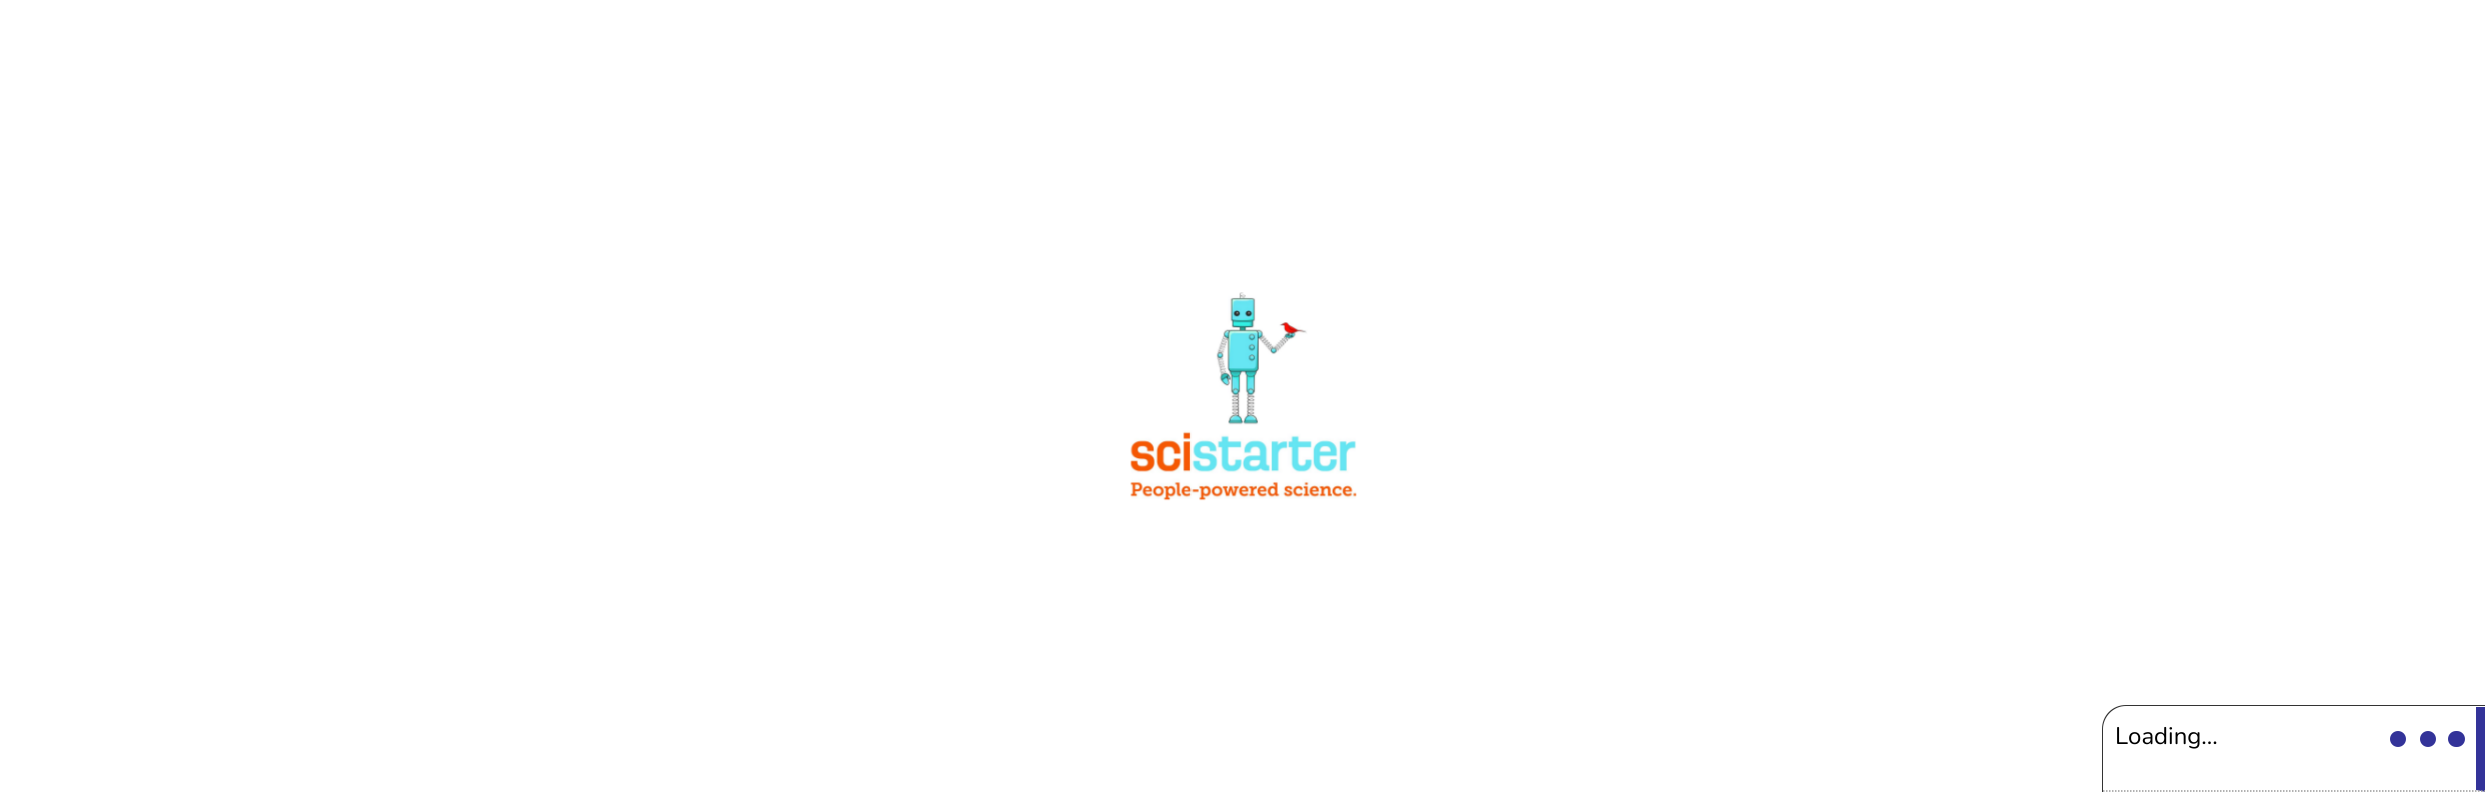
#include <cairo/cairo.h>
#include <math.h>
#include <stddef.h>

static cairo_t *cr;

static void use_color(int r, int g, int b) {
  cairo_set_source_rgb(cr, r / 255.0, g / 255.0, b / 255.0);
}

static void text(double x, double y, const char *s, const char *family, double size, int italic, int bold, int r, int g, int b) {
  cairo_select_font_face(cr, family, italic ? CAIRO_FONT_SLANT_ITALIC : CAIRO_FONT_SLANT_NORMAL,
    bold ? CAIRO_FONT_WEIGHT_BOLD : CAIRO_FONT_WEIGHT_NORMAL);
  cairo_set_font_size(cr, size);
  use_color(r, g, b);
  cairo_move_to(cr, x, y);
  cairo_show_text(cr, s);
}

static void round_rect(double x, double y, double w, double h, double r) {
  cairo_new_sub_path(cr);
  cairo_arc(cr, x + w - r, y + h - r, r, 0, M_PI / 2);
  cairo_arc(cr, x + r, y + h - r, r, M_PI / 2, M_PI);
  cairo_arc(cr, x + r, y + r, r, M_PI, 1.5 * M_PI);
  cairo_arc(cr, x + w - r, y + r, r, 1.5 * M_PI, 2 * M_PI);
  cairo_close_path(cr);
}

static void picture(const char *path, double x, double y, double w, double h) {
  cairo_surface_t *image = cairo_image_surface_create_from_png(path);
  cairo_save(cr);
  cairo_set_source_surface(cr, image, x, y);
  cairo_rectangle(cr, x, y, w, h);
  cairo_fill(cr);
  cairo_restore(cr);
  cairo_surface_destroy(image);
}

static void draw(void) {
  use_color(255, 255, 255);
  cairo_paint(cr);
  picture("img_01.png", 1130, 292, 227, 209);
  use_color(51, 51, 51);
  cairo_set_fill_rule(cr, CAIRO_FILL_RULE_EVEN_ODD);
  cairo_new_path(cr);
  cairo_move_to(cr, 2126, 705);
  cairo_line_to(cr, 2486, 705);
  cairo_line_to(cr, 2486, 792);
  cairo_line_to(cr, 2102, 792);
  cairo_line_to(cr, 2102, 729);
  cairo_curve_to(cr, 2102, 716, 2112, 705, 2126, 705);
  cairo_close_path(cr);
  cairo_move_to(cr, 2126, 706);
  cairo_line_to(cr, 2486, 706);
  cairo_line_to(cr, 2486, 792);
  cairo_line_to(cr, 2103, 792);
  cairo_line_to(cr, 2103, 729);
  cairo_curve_to(cr, 2103, 717, 2113, 706, 2126, 706);
  cairo_close_path(cr);
  cairo_fill(cr);
  use_color(51, 51, 153);
  cairo_set_fill_rule(cr, CAIRO_FILL_RULE_WINDING);
  cairo_new_path(cr);
  cairo_move_to(cr, 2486, 792);
  cairo_line_to(cr, 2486, 707);
  cairo_line_to(cr, 2476, 707);
  cairo_line_to(cr, 2476, 790);
  cairo_close_path(cr);
  cairo_fill(cr);
  cairo_new_path(cr);
  cairo_move_to(cr, 2103, 791);
  cairo_line_to(cr, 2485.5, 791);
  use_color(153, 153, 153);
  cairo_set_line_width(cr, 1.5);
  cairo_set_dash(cr, (double[]){1.5, 1.5}, 2, 0);
  cairo_stroke(cr);
  use_color(51, 51, 153);
  cairo_arc(cr, 2398, 739, 8, 0, 2 * M_PI);
  cairo_fill(cr);
  cairo_arc(cr, 2428, 739, 8, 0, 2 * M_PI);
  cairo_fill(cr);
  round_rect(2448, 731, 17, 16, 8);
  cairo_fill(cr);
  text(2115, 744, "Loading...", "Nunito", 24, 0, 0, 0, 0, 0);
}

int main(void) {
  cairo_surface_t *surface = cairo_image_surface_create(CAIRO_FORMAT_RGB24, 2485, 792);
  cr = cairo_create(surface);
  cairo_font_options_t *options = cairo_font_options_create();
  cairo_font_options_set_hint_metrics(options, CAIRO_HINT_METRICS_OFF);
  cairo_font_options_set_hint_style(options, CAIRO_HINT_STYLE_NONE);
  cairo_set_font_options(cr, options);
  cairo_set_miter_limit(cr, 4);
  draw();
  cairo_surface_write_to_png(surface, "out.png");
  cairo_font_options_destroy(options);
  cairo_destroy(cr);
  cairo_surface_destroy(surface);
  return 0;
}
